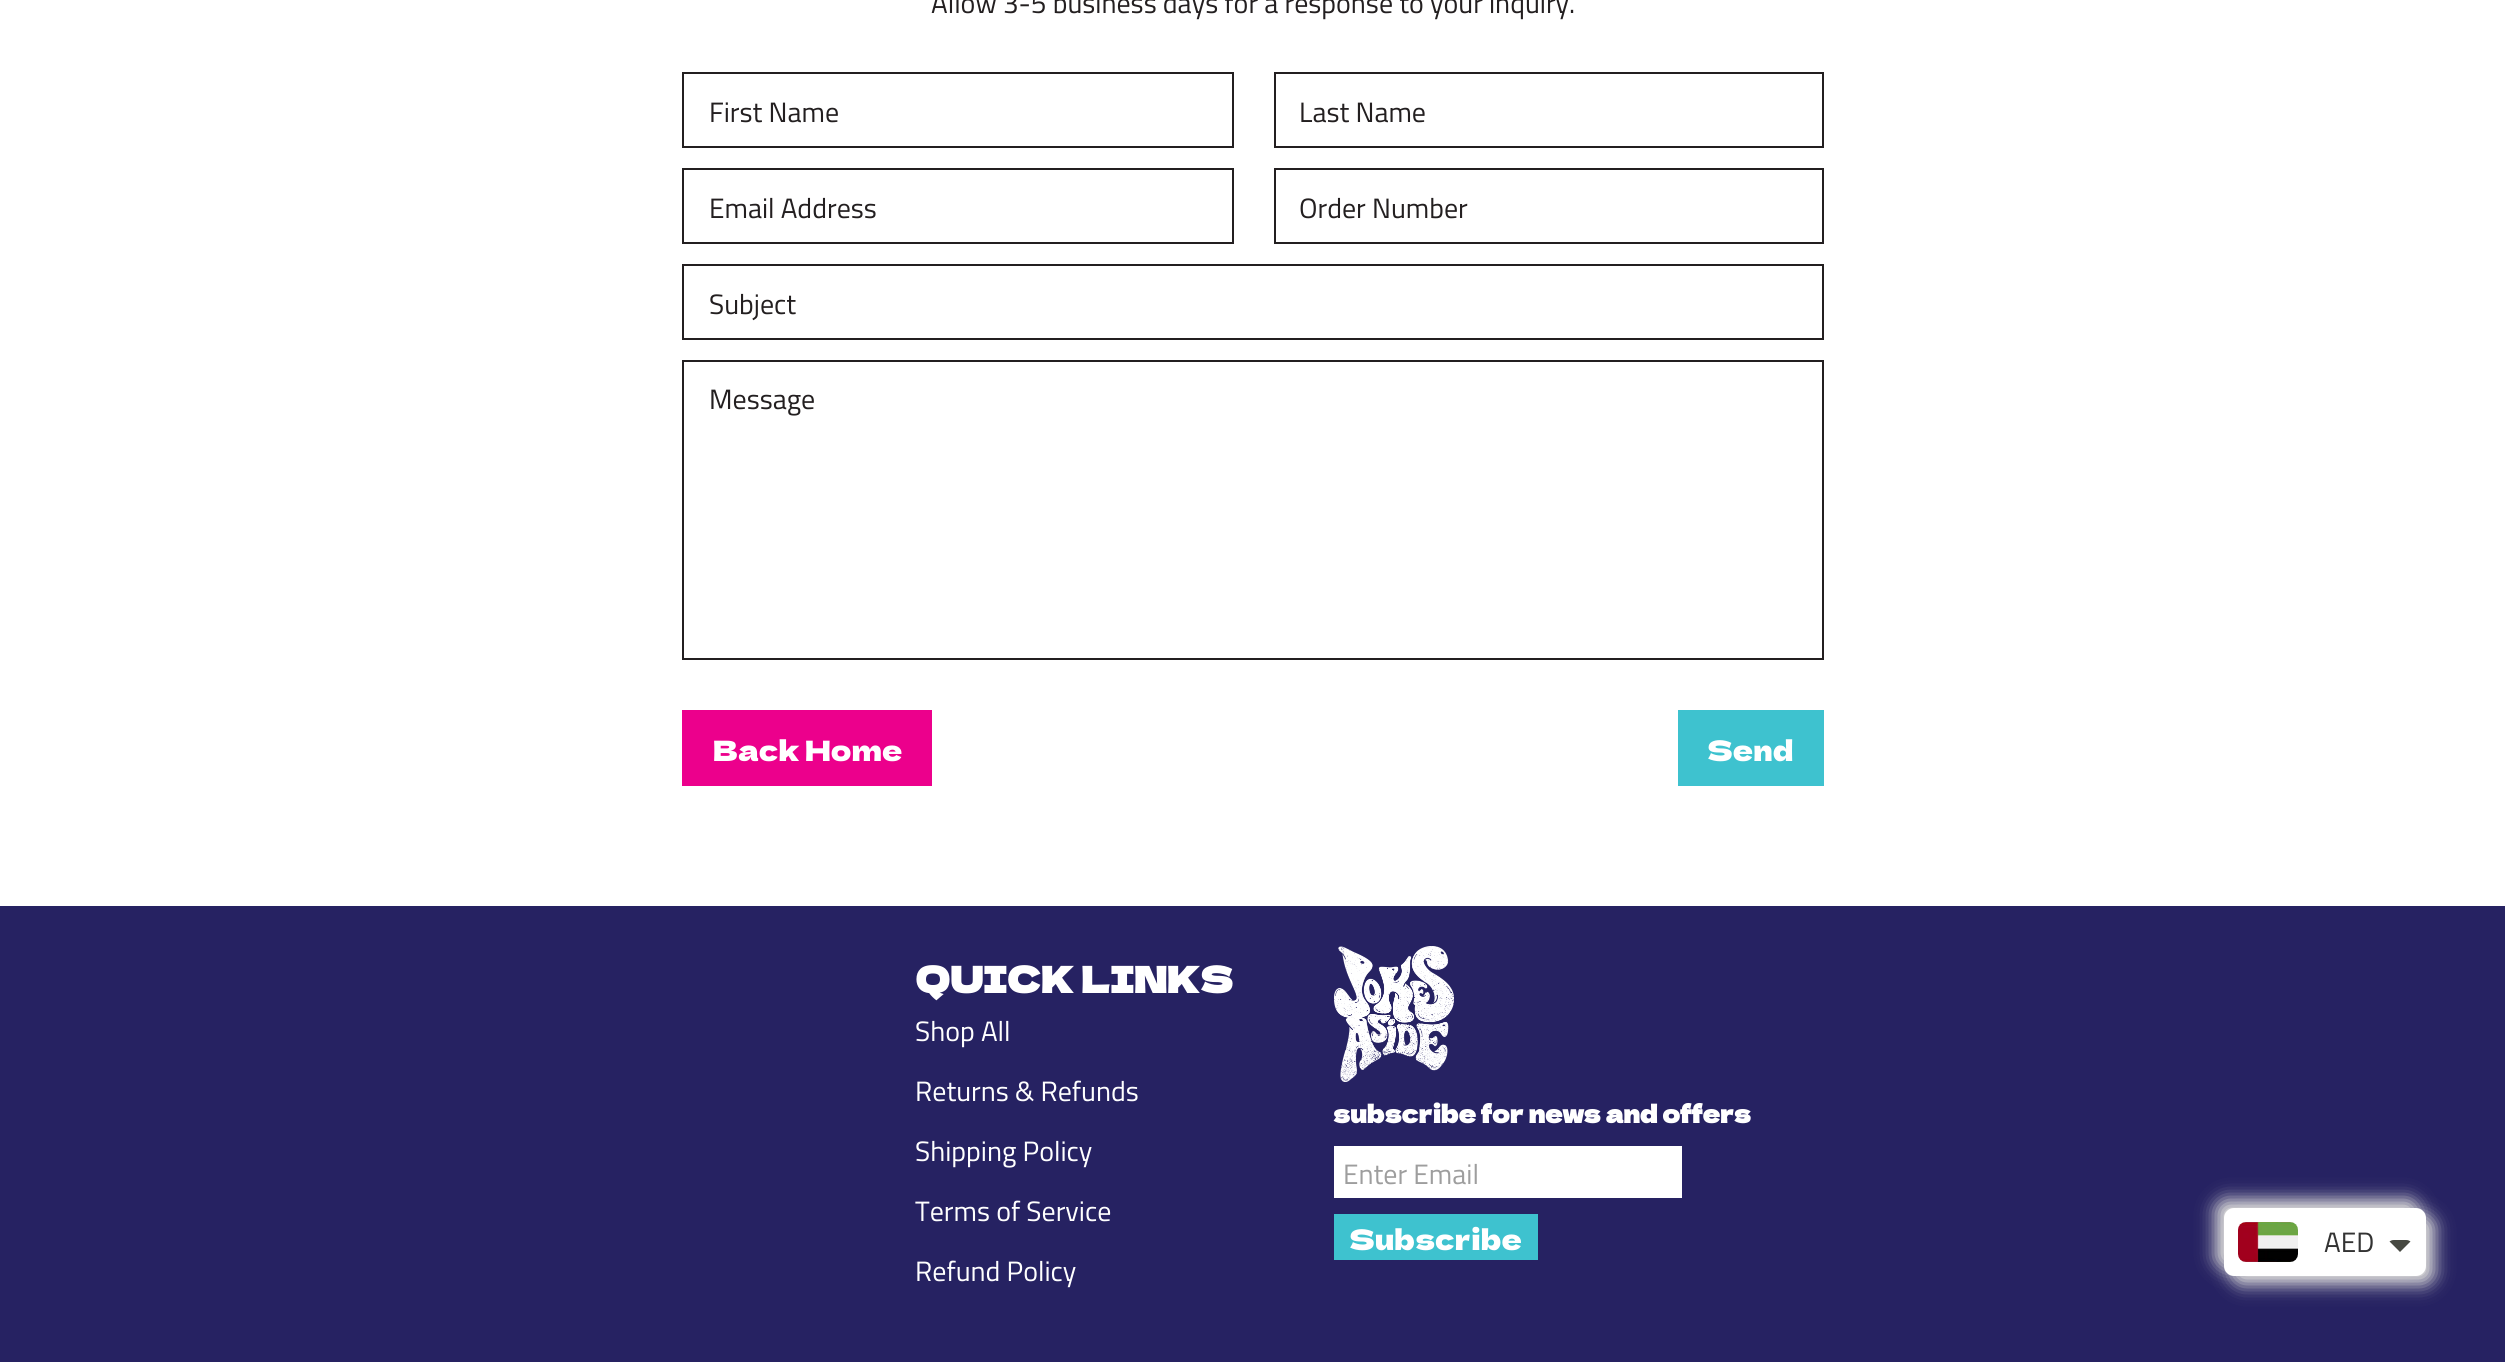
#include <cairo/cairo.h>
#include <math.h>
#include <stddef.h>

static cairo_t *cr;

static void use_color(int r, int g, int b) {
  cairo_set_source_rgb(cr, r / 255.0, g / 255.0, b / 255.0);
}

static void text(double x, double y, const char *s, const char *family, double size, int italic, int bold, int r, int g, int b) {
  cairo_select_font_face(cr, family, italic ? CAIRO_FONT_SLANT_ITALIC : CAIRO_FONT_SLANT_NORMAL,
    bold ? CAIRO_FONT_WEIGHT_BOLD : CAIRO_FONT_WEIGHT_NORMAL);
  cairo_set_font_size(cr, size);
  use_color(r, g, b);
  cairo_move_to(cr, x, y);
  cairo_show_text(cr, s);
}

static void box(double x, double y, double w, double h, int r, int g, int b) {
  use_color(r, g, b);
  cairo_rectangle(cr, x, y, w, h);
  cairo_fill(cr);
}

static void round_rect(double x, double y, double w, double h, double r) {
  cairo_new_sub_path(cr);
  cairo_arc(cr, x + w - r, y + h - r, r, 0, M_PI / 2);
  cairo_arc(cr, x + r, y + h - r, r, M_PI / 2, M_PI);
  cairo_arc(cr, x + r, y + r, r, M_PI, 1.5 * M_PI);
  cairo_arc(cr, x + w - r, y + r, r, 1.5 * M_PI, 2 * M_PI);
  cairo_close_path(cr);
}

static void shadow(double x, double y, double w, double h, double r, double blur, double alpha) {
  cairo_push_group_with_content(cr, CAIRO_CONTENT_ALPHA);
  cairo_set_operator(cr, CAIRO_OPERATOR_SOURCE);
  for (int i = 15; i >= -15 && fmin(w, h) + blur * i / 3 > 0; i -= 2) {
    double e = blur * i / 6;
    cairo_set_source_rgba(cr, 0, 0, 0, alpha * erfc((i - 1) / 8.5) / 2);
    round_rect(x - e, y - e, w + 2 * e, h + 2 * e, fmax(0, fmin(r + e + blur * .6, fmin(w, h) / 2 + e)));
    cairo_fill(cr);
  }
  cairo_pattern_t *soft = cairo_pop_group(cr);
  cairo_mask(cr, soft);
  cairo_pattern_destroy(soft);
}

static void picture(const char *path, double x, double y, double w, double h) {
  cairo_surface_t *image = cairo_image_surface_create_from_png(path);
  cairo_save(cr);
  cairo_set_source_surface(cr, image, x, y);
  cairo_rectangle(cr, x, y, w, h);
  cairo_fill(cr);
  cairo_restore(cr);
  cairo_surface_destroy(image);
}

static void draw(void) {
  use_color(255, 255, 255);
  cairo_paint(cr);
  cairo_rectangle(cr, 683, 73, 550, 74);
  use_color(35, 31, 32);
  cairo_stroke(cr);
  cairo_rectangle(cr, 683, 169, 550, 74);
  cairo_stroke(cr);
  cairo_rectangle(cr, 1275, 73, 548, 74);
  cairo_stroke(cr);
  cairo_rectangle(cr, 1275, 169, 548, 74);
  cairo_stroke(cr);
  cairo_rectangle(cr, 683, 265, 1140, 74);
  cairo_stroke(cr);
  cairo_rectangle(cr, 683, 361, 1140, 298);
  cairo_stroke(cr);
  box(682, 710, 250, 76, 236, 0, 140);
  box(1678, 710, 146, 76, 62, 194, 207);
  box(0, 906, 2505, 456, 38, 34, 98);
  picture("img_01.png", 1334, 946, 120, 136);
  box(1334, 1146, 348, 52, 255, 255, 255);
  box(1334, 1214, 204, 46, 62, 194, 207);
  use_color(232, 232, 226);
  shadow(2216, 1200, 202, 68, 10, 9, 1);
  shadow(2232, 1216, 202, 68, 10, 9, 1);
  use_color(255, 255, 255);
  round_rect(2224, 1208, 202, 68, 10);
  cairo_fill(cr);
  picture("img_02.png", 2238, 1222, 60, 40);
  use_color(71, 73, 66);
  cairo_new_path(cr);
  cairo_move_to(cr, 2394, 1240);
  cairo_curve_to(cr, 2392, 1240, 2391, 1240.5, 2389.5, 1241.5);
  cairo_line_to(cr, 2400, 1252);
  cairo_line_to(cr, 2410.5, 1241.5);
  cairo_curve_to(cr, 2409, 1240.5, 2408, 1240, 2406, 1240);
  cairo_close_path(cr);
  cairo_fill(cr);
  text(931, 13, "Allow 3-5 business days for a response to your inquiry.", "Titillium Web", 28, 0, 0, 35, 31, 32);
  text(709, 122, "First Name", "Titillium Web", 28, 0, 0, 35, 31, 32);
  text(709, 218, "Email Address", "Titillium Web", 28, 0, 0, 35, 31, 32);
  text(1299, 122, "Last Name", "Titillium Web", 28, 0, 0, 35, 31, 32);
  text(1299, 218, "Order Number", "Titillium Web", 28, 0, 0, 35, 31, 32);
  text(709, 314, "Subject", "Titillium Web", 28, 0, 0, 35, 31, 32);
  text(709, 409, "Message", "Titillium Web", 28, 0, 0, 35, 31, 32);
  text(713, 761, "Back Home", "Dela Gothic One", 28, 0, 0, 255, 255, 255);
  text(1707, 761, "Send", "Dela Gothic One", 28, 0, 0, 255, 255, 255);
  text(915, 993, "QUICK LINKS", "Dela Gothic One", 36, 0, 1, 255, 255, 255);
  text(915, 1041, "Shop All", "Titillium Web", 28, 0, 0, 255, 255, 255);
  text(915, 1101, "Returns & Refunds", "Titillium Web", 28, 0, 0, 255, 255, 255);
  text(915, 1161, "Shipping Policy", "Titillium Web", 28, 0, 0, 255, 255, 255);
  text(915, 1221, "Terms of Service", "Titillium Web", 28, 0, 0, 255, 255, 255);
  text(915, 1281, "Refund Policy", "Titillium Web", 28, 0, 0, 255, 255, 255);
  text(1333, 1123, "subscribe for news and offers", "Dela Gothic One", 24, 0, 1, 255, 255, 255);
  text(1343, 1184, "Enter Email", "Titillium Web", 28, 0, 0, 158, 158, 158);
  text(1349, 1250, "Subscribe", "Dela Gothic One", 28, 0, 0, 255, 255, 255);
  text(2324, 1252, "AED", "Titillium Web", 28, 0, 0, 51, 51, 51);
}

int main(void) {
  cairo_surface_t *surface = cairo_image_surface_create(CAIRO_FORMAT_RGB24, 2505, 1362);
  cr = cairo_create(surface);
  cairo_font_options_t *options = cairo_font_options_create();
  cairo_font_options_set_hint_metrics(options, CAIRO_HINT_METRICS_OFF);
  cairo_font_options_set_hint_style(options, CAIRO_HINT_STYLE_NONE);
  cairo_set_font_options(cr, options);
  cairo_set_miter_limit(cr, 4);
  draw();
  cairo_surface_write_to_png(surface, "out.png");
  cairo_font_options_destroy(options);
  cairo_destroy(cr);
  cairo_surface_destroy(surface);
  return 0;
}
